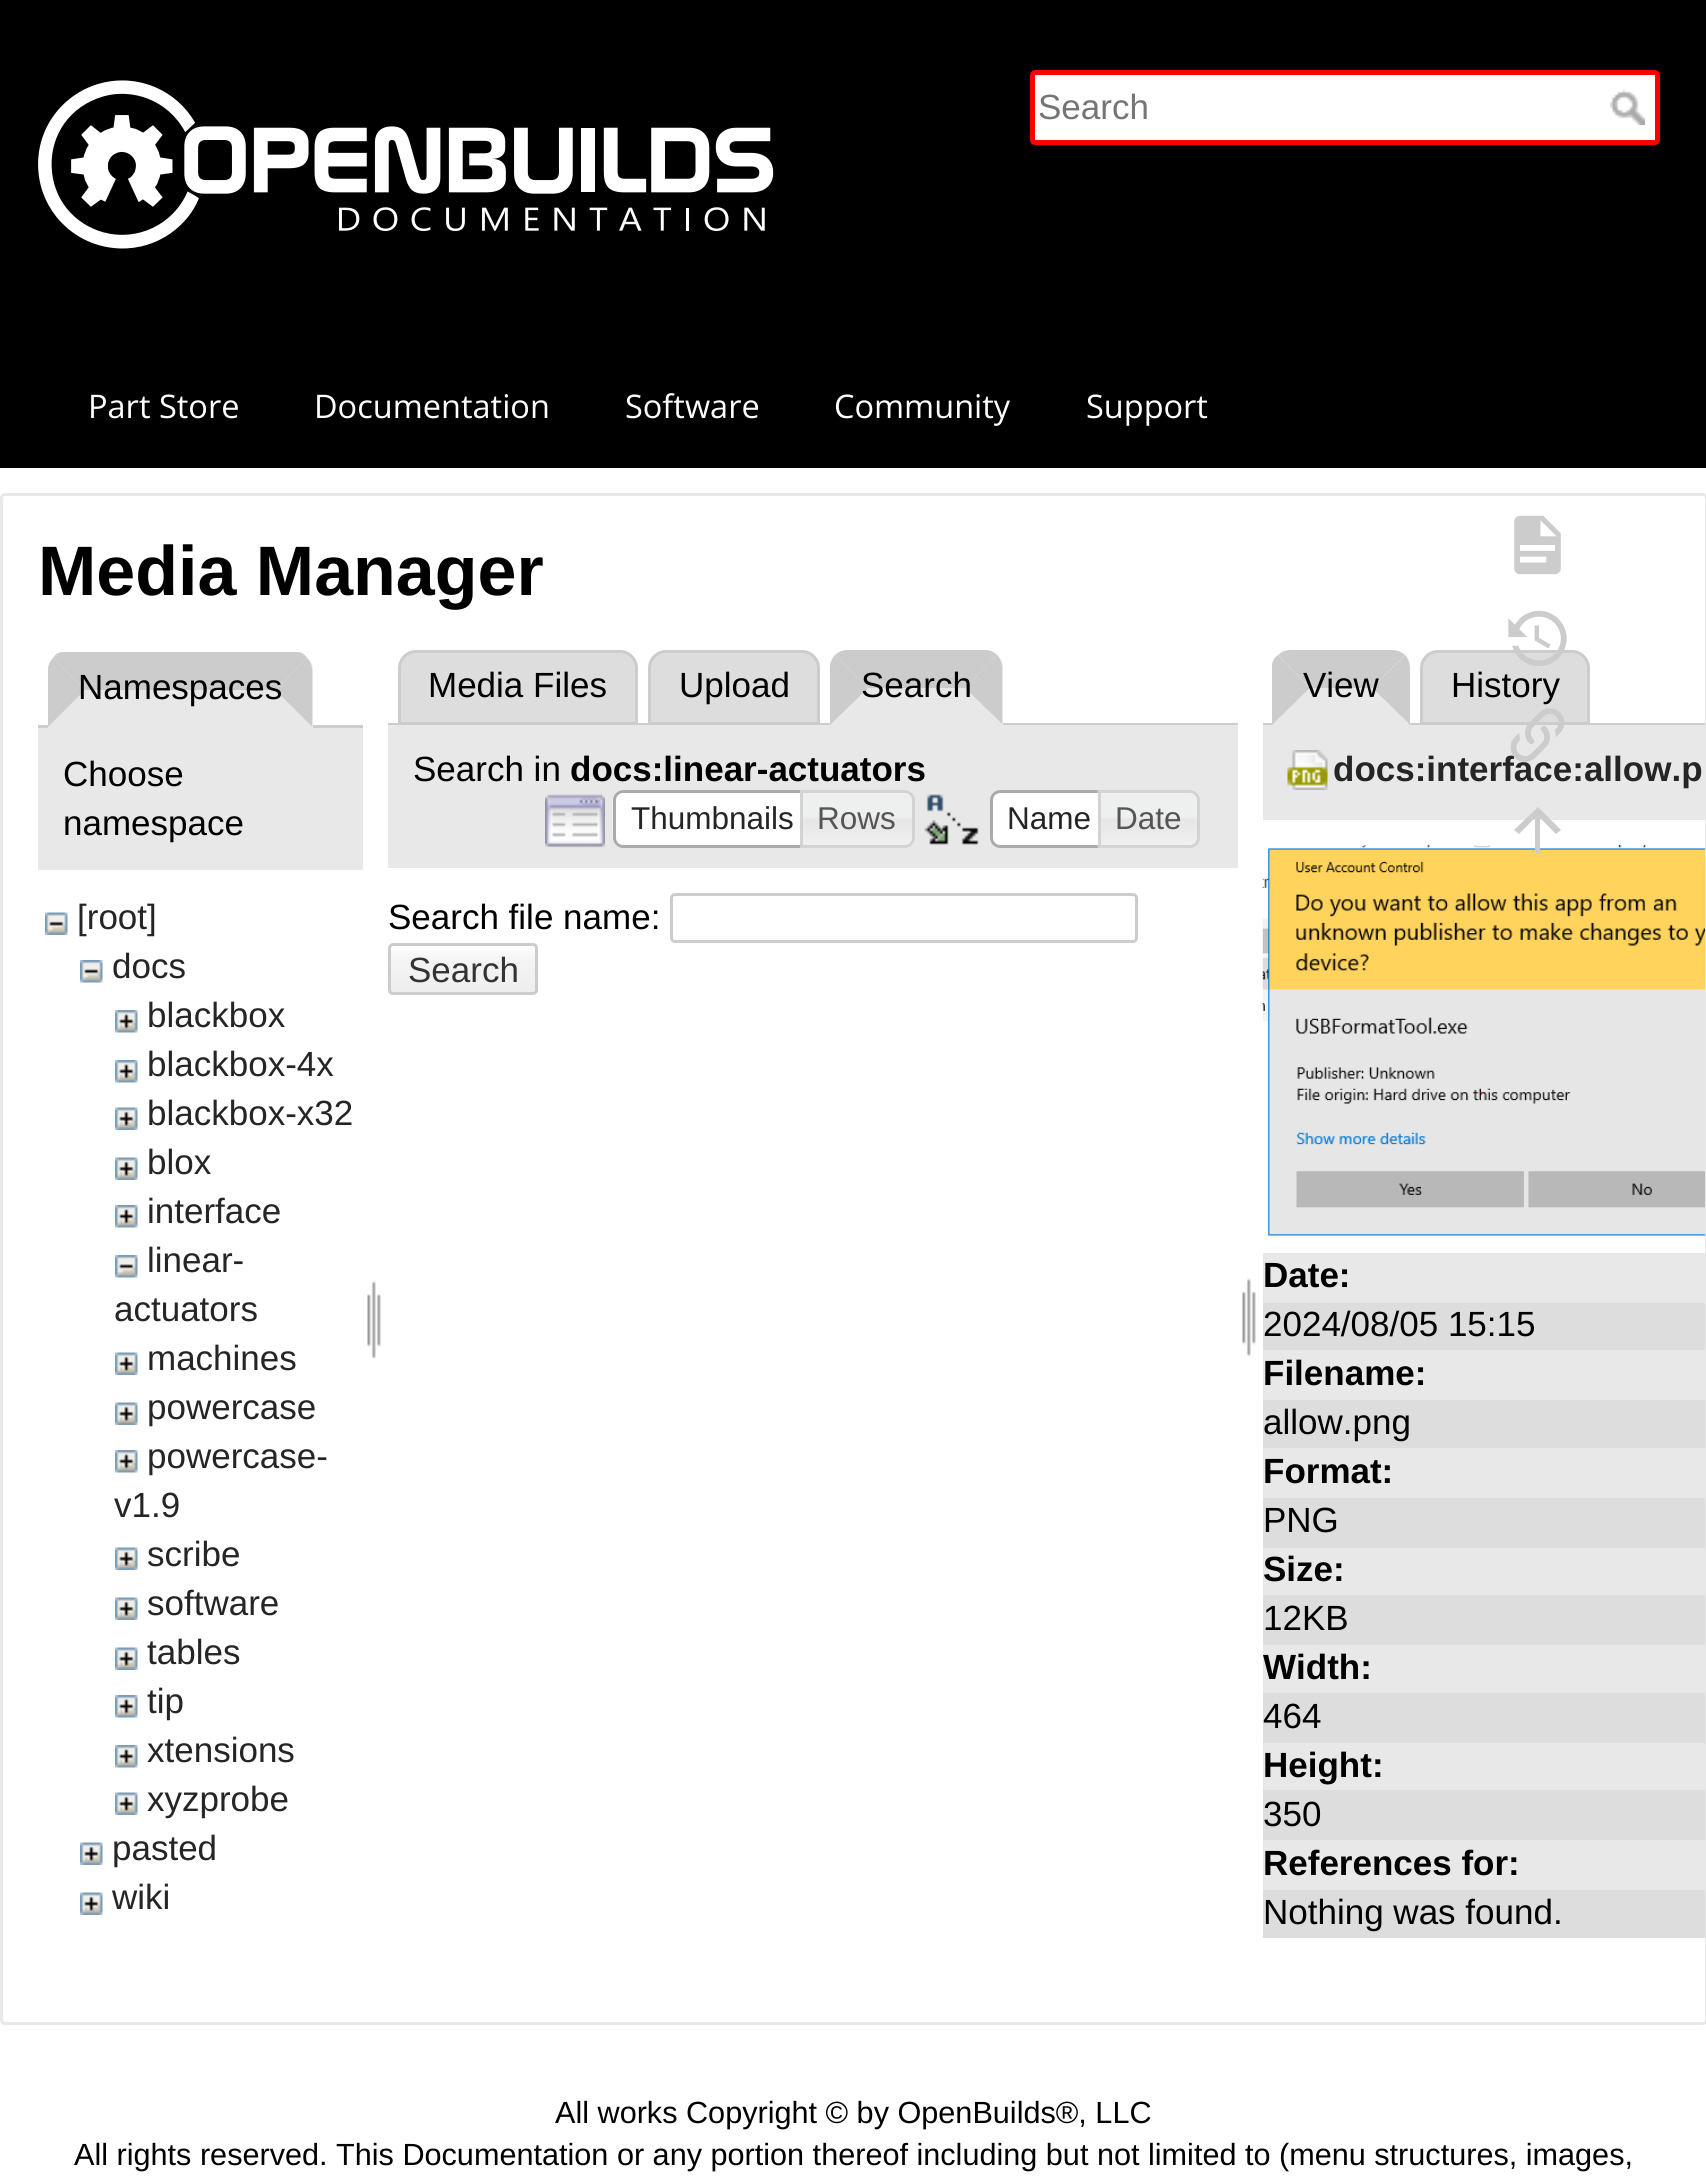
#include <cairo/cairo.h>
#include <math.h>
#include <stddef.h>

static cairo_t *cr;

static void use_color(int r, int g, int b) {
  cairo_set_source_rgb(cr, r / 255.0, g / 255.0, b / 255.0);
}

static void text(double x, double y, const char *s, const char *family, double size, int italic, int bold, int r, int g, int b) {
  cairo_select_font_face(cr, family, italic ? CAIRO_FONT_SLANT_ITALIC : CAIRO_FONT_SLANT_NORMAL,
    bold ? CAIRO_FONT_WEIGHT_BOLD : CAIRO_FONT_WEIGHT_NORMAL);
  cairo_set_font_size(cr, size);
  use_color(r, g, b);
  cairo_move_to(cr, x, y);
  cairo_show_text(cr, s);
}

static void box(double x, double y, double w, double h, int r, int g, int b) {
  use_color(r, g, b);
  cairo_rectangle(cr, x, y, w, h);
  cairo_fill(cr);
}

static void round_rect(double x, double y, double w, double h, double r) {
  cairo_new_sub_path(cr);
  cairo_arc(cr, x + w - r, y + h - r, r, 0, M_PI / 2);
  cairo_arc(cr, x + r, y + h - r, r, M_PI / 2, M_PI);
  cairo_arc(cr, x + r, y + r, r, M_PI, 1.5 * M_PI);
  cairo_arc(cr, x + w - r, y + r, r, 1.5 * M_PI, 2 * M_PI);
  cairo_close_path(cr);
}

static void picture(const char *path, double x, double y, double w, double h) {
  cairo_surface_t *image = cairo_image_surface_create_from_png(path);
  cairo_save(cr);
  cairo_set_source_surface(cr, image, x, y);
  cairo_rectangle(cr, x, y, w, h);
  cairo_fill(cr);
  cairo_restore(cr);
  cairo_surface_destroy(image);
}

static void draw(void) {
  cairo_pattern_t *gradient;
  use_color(255, 255, 255);
  cairo_paint(cr);
  box(0, 0, 1706, 468, 0, 0, 0);
  picture("img_01.png", 38, 80, 736, 169);
  use_color(255, 255, 255);
  round_rect(1032.5, 72.5, 625, 70, 2.5);
  cairo_fill_preserve(cr);
  use_color(255, 0, 0);
  cairo_set_line_width(cr, 5);
  cairo_stroke(cr);
  picture("img_02.png", 1610, 90, 35, 35);
  round_rect(1.5, 494.5, 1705, 1529, 3.5);
  use_color(232, 232, 232);
  cairo_set_line_width(cr, 3);
  cairo_stroke(cr);
  picture("img_03.png", 1514, 515, 47, 60);
  use_color(221, 221, 221);
  cairo_new_path(cr);
  cairo_move_to(cr, 1438, 651.5);
  cairo_line_to(cr, 1572, 651.5);
  cairo_curve_to(cr, 1581, 651.5, 1588.5, 659, 1588.5, 668);
  cairo_line_to(cr, 1588.5, 723.5);
  cairo_line_to(cr, 1421.5, 723.5);
  cairo_line_to(cr, 1421.5, 668);
  cairo_curve_to(cr, 1421.5, 659, 1429, 651.5, 1438, 651.5);
  cairo_close_path(cr);
  cairo_fill_preserve(cr);
  use_color(204, 204, 204);
  cairo_stroke(cr);
  picture("img_04.png", 1508, 610, 59, 56);
  box(1263, 725, 442, 95, 232, 232, 232);
  picture("img_20.png", 1262, 845, 443, 391);
  use_color(204, 204, 204);
  cairo_new_path(cr);
  cairo_move_to(cr, 1540, 853);
  cairo_line_to(cr, 1535, 853);
  cairo_line_to(cr, 1535, 818);
  cairo_line_to(cr, 1519, 834);
  cairo_line_to(cr, 1514, 830);
  cairo_line_to(cr, 1538, 807);
  cairo_line_to(cr, 1561, 830);
  cairo_line_to(cr, 1556, 834);
  cairo_line_to(cr, 1540, 818);
  cairo_close_path(cr);
  cairo_fill(cr);
  box(38, 725, 325, 3, 204, 204, 204);
  use_color(232, 232, 232);
  cairo_new_path(cr);
  cairo_move_to(cr, 66, 653);
  cairo_line_to(cr, 295, 653);
  cairo_curve_to(cr, 305, 653, 313, 661, 313, 671);
  cairo_line_to(cr, 313, 728);
  cairo_line_to(cr, 48, 728);
  cairo_line_to(cr, 48, 671);
  cairo_curve_to(cr, 48, 661, 56, 653, 66, 653);
  cairo_close_path(cr);
  cairo_fill(cr);
  use_color(204, 204, 204);
  cairo_new_path(cr);
  cairo_move_to(cr, 299, 652);
  cairo_line_to(cr, 61, 652);
  cairo_curve_to(cr, 57, 653, 55, 655, 53, 658);
  cairo_line_to(cr, 85, 690);
  cairo_line_to(cr, 275, 690);
  cairo_line_to(cr, 307, 658);
  cairo_curve_to(cr, 305, 655, 303, 653, 299, 652);
  cairo_close_path(cr);
  cairo_fill(cr);
  cairo_new_path(cr);
  cairo_move_to(cr, 307, 658);
  cairo_line_to(cr, 275, 690);
  cairo_line_to(cr, 312, 727);
  cairo_line_to(cr, 312, 670);
  cairo_curve_to(cr, 312, 665, 310, 661, 307, 658);
  cairo_close_path(cr);
  cairo_fill(cr);
  use_color(232, 232, 232);
  cairo_new_path(cr);
  cairo_move_to(cr, 312, 727);
  cairo_line_to(cr, 275, 690);
  cairo_line_to(cr, 85, 690);
  cairo_line_to(cr, 48, 727);
  cairo_line_to(cr, 48, 728);
  cairo_line_to(cr, 312, 728);
  cairo_close_path(cr);
  cairo_fill(cr);
  use_color(204, 204, 204);
  cairo_new_path(cr);
  cairo_move_to(cr, 48, 727);
  cairo_line_to(cr, 85, 690);
  cairo_line_to(cr, 53, 658);
  cairo_curve_to(cr, 50, 661, 48, 665, 48, 670);
  cairo_close_path(cr);
  cairo_fill(cr);
  box(38, 728, 325, 142, 232, 232, 232);
  picture("img_06.png", 45, 912, 23, 23);
  picture("img_07.png", 80, 960, 23, 23);
  picture("img_08.png", 115, 1010, 23, 23);
  picture("img_08.png", 115, 1060, 23, 23);
  picture("img_09.png", 115, 1107, 23, 23);
  picture("img_10.png", 115, 1157, 23, 23);
  picture("img_08.png", 115, 1205, 23, 23);
  picture("img_07.png", 115, 1255, 23, 23);
  picture("img_09.png", 115, 1352, 23, 23);
  picture("img_09.png", 115, 1402, 23, 23);
  picture("img_08.png", 115, 1450, 23, 23);
  picture("img_10.png", 115, 1547, 23, 23);
  picture("img_09.png", 115, 1597, 23, 23);
  picture("img_09.png", 115, 1647, 23, 23);
  picture("img_08.png", 115, 1695, 23, 23);
  picture("img_08.png", 115, 1745, 23, 23);
  picture("img_09.png", 115, 1792, 23, 23);
  picture("img_10.png", 80, 1842, 23, 23);
  picture("img_09.png", 80, 1892, 23, 23);
  picture("img_11.png", 367, 1280, 14, 79);
  use_color(221, 221, 221);
  cairo_new_path(cr);
  cairo_move_to(cr, 416, 651.5);
  cairo_line_to(cr, 620, 651.5);
  cairo_curve_to(cr, 629, 651.5, 636.5, 659, 636.5, 668);
  cairo_line_to(cr, 636.5, 723.5);
  cairo_line_to(cr, 399.5, 723.5);
  cairo_line_to(cr, 399.5, 668);
  cairo_curve_to(cr, 399.5, 659, 407, 651.5, 416, 651.5);
  cairo_close_path(cr);
  cairo_fill_preserve(cr);
  use_color(204, 204, 204);
  cairo_stroke(cr);
  use_color(221, 221, 221);
  cairo_new_path(cr);
  cairo_move_to(cr, 666, 651.5);
  cairo_line_to(cr, 802, 651.5);
  cairo_curve_to(cr, 811, 651.5, 818.5, 659, 818.5, 668);
  cairo_line_to(cr, 818.5, 723.5);
  cairo_line_to(cr, 649.5, 723.5);
  cairo_line_to(cr, 649.5, 668);
  cairo_curve_to(cr, 649.5, 659, 657, 651.5, 666, 651.5);
  cairo_close_path(cr);
  cairo_fill_preserve(cr);
  use_color(204, 204, 204);
  cairo_stroke(cr);
  box(388, 723, 850, 2, 204, 204, 204);
  use_color(232, 232, 232);
  cairo_new_path(cr);
  cairo_move_to(cr, 848, 650);
  cairo_line_to(cr, 985, 650);
  cairo_curve_to(cr, 995, 650, 1003, 658, 1003, 668);
  cairo_line_to(cr, 1003, 725);
  cairo_line_to(cr, 830, 725);
  cairo_line_to(cr, 830, 668);
  cairo_curve_to(cr, 830, 658, 838, 650, 848, 650);
  cairo_close_path(cr);
  cairo_fill(cr);
  use_color(204, 204, 204);
  cairo_new_path(cr);
  cairo_move_to(cr, 848, 650);
  cairo_line_to(cr, 985, 650);
  cairo_curve_to(cr, 990, 650, 994, 652, 997, 655);
  cairo_line_to(cr, 965, 688);
  cairo_line_to(cr, 868, 688);
  cairo_line_to(cr, 835, 655);
  cairo_curve_to(cr, 838, 652, 843, 650, 848, 650);
  cairo_close_path(cr);
  cairo_fill(cr);
  cairo_new_path(cr);
  cairo_move_to(cr, 997, 655);
  cairo_line_to(cr, 965, 688);
  cairo_line_to(cr, 1002, 724);
  cairo_line_to(cr, 1002, 668);
  cairo_curve_to(cr, 1002, 663, 1000, 658, 997, 655);
  cairo_close_path(cr);
  cairo_fill(cr);
  use_color(232, 232, 232);
  cairo_new_path(cr);
  cairo_move_to(cr, 1002, 724);
  cairo_line_to(cr, 965, 688);
  cairo_line_to(cr, 868, 688);
  cairo_line_to(cr, 830, 725);
  cairo_line_to(cr, 1002, 725);
  cairo_close_path(cr);
  cairo_fill(cr);
  use_color(204, 204, 204);
  cairo_new_path(cr);
  cairo_move_to(cr, 830, 725);
  cairo_line_to(cr, 830, 668);
  cairo_curve_to(cr, 830, 663, 832, 658, 835, 655);
  cairo_line_to(cr, 868, 688);
  cairo_close_path(cr);
  cairo_fill(cr);
  box(388, 725, 850, 143, 232, 232, 232);
  picture("img_12.png", 545, 794, 60, 54);
  use_color(255, 255, 255);
  cairo_new_path(cr);
  cairo_move_to(cr, 623, 790);
  cairo_line_to(cr, 813, 790);
  cairo_line_to(cr, 813, 848);
  cairo_line_to(cr, 623, 848);
  cairo_curve_to(cr, 617.5, 848, 613, 843.5, 613, 838);
  cairo_line_to(cr, 613, 800);
  cairo_curve_to(cr, 613, 794.5, 617.5, 790, 623, 790);
  cairo_close_path(cr);
  cairo_fill(cr);
  picture("img_13.png", 612, 790, 9, 55);
  cairo_new_path(cr);
  cairo_move_to(cr, 623, 791.5);
  cairo_line_to(cr, 811.5, 791.5);
  cairo_line_to(cr, 811.5, 846.5);
  cairo_line_to(cr, 623, 846.5);
  cairo_curve_to(cr, 618.5, 846.5, 614.5, 842.5, 614.5, 838);
  cairo_line_to(cr, 614.5, 800);
  cairo_curve_to(cr, 614.5, 795.5, 618.5, 791.5, 623, 791.5);
  cairo_close_path(cr);
  use_color(170, 170, 170);
  cairo_stroke(cr);
  picture("img_14.png", 803, 790, 112, 57);
  cairo_new_path(cr);
  cairo_move_to(cr, 801.5, 791.5);
  cairo_line_to(cr, 905, 791.5);
  cairo_curve_to(cr, 909.5, 791.5, 913.5, 795.5, 913.5, 800);
  cairo_line_to(cr, 913.5, 838);
  cairo_curve_to(cr, 913.5, 842.5, 909.5, 846.5, 905, 846.5);
  cairo_line_to(cr, 801.5, 846.5);
  cairo_close_path(cr);
  use_color(211, 211, 211);
  cairo_stroke(cr);
  picture("img_15.png", 924, 794, 55, 51);
  use_color(255, 255, 255);
  cairo_new_path(cr);
  cairo_move_to(cr, 1000, 790);
  cairo_line_to(cr, 1110, 790);
  cairo_line_to(cr, 1110, 848);
  cairo_line_to(cr, 1000, 848);
  cairo_curve_to(cr, 994.5, 848, 990, 843.5, 990, 838);
  cairo_line_to(cr, 990, 800);
  cairo_curve_to(cr, 990, 794.5, 994.5, 790, 1000, 790);
  cairo_close_path(cr);
  cairo_fill(cr);
  picture("img_16.png", 992, 790, 6, 4);
  cairo_new_path(cr);
  cairo_move_to(cr, 1000, 791.5);
  cairo_line_to(cr, 1108.5, 791.5);
  cairo_line_to(cr, 1108.5, 846.5);
  cairo_line_to(cr, 1000, 846.5);
  cairo_curve_to(cr, 995.5, 846.5, 991.5, 842.5, 991.5, 838);
  cairo_line_to(cr, 991.5, 800);
  cairo_curve_to(cr, 991.5, 795.5, 995.5, 791.5, 1000, 791.5);
  cairo_close_path(cr);
  use_color(170, 170, 170);
  cairo_stroke(cr);
  picture("img_17.png", 1097, 790, 103, 58);
  cairo_new_path(cr);
  cairo_move_to(cr, 1099.5, 791.5);
  cairo_line_to(cr, 1190, 791.5);
  cairo_curve_to(cr, 1194.5, 791.5, 1198.5, 795.5, 1198.5, 800);
  cairo_line_to(cr, 1198.5, 838);
  cairo_curve_to(cr, 1198.5, 842.5, 1194.5, 846.5, 1190, 846.5);
  cairo_line_to(cr, 1099.5, 846.5);
  cairo_close_path(cr);
  use_color(211, 211, 211);
  cairo_stroke(cr);
  round_rect(671.5, 894.5, 465, 47, 3.5);
  use_color(204, 204, 204);
  cairo_stroke(cr);
  cairo_save(cr);
  round_rect(388, 943, 150, 52, 5);
  cairo_clip(cr);
  gradient = cairo_pattern_create_linear(463, 945, 463, 993);
  cairo_pattern_add_color_stop_rgba(gradient, 0, 1, 1, 1, 1);
  cairo_pattern_add_color_stop_rgba(gradient, 0.3, 0.957, 0.957, 0.957, 1);
  cairo_pattern_add_color_stop_rgba(gradient, 0.99, 0.933, 0.933, 0.933, 1);
  cairo_pattern_add_color_stop_rgba(gradient, 0.99, 0.8, 0.8, 0.8, 1);
  cairo_set_source(cr, gradient);
  cairo_pattern_destroy(gradient);
  cairo_rectangle(cr, 388, 945, 150, 48);
  cairo_fill(cr);
  cairo_restore(cr);
  round_rect(389.5, 944.5, 147, 49, 3.5);
  cairo_stroke(cr);
  picture("img_18.png", 1242, 1277, 14, 79);
  cairo_new_path(cr);
  cairo_move_to(cr, 1290, 650);
  cairo_line_to(cr, 1392, 650);
  cairo_curve_to(cr, 1397, 650, 1402, 652, 1405, 655);
  cairo_line_to(cr, 1372, 688);
  cairo_line_to(cr, 1310, 688);
  cairo_line_to(cr, 1278, 655);
  cairo_curve_to(cr, 1281, 652, 1285, 650, 1290, 650);
  cairo_close_path(cr);
  cairo_fill(cr);
  picture("img_19.png", 1287, 750, 41, 40);
  box(1263, 1253, 442, 50, 232, 232, 232);
  box(1263, 1303, 442, 47, 221, 221, 221);
  box(1263, 1350, 442, 50, 232, 232, 232);
  box(1263, 1400, 442, 48, 221, 221, 221);
  box(1263, 1448, 442, 50, 232, 232, 232);
  box(1263, 1498, 442, 50, 221, 221, 221);
  box(1263, 1548, 442, 47, 232, 232, 232);
  box(1263, 1595, 442, 50, 221, 221, 221);
  box(1263, 1645, 442, 48, 232, 232, 232);
  box(1263, 1693, 442, 50, 221, 221, 221);
  box(1263, 1743, 442, 47, 232, 232, 232);
  box(1263, 1790, 442, 50, 221, 221, 221);
  box(1263, 1840, 442, 50, 232, 232, 232);
  box(1263, 1890, 442, 48, 221, 221, 221);
  text(1038, 119, "Search", "Liberation Sans", 35, 0, 0, 117, 117, 117);
  text(88, 418, "Part Store", "Open Sans", 32.5, 0, 0, 255, 255, 255);
  text(314, 418, "Documentation", "Open Sans", 32.5, 0, 0, 255, 255, 255);
  text(625, 418, "Software", "Open Sans", 32.5, 0, 0, 255, 255, 255);
  text(834, 418, "Community", "Open Sans", 32.5, 0, 0, 255, 255, 255);
  text(1086, 418, "Support", "Open Sans", 32.5, 0, 0, 255, 255, 255);
  text(38, 595, "Media Manager", "Liberation Sans", 70, 0, 1, 0, 0, 0);
  text(78, 699, "Namespaces", "Liberation Sans", 35, 0, 0, 0, 0, 0);
  text(63, 786, "Choose", "Liberation Sans", 35, 0, 0, 0, 0, 0);
  text(63, 835, "namespace", "Liberation Sans", 35, 0, 0, 0, 0, 0);
  text(77, 929, "[root]", "Liberation Sans", 35, 0, 0, 37, 37, 37);
  text(112, 978, "docs", "Liberation Sans", 35, 0, 0, 37, 37, 37);
  text(147, 1027, "blackbox", "Liberation Sans", 35, 0, 0, 37, 37, 37);
  text(147, 1076, "blackbox-4x", "Liberation Sans", 35, 0, 0, 37, 37, 37);
  text(147, 1125, "blackbox-x32", "Liberation Sans", 35, 0, 0, 37, 37, 37);
  text(147, 1174, "blox", "Liberation Sans", 35, 0, 0, 37, 37, 37);
  text(147, 1223, "interface", "Liberation Sans", 35, 0, 0, 37, 37, 37);
  text(147, 1272, "linear-", "Liberation Sans", 35, 0, 0, 37, 37, 37);
  text(114, 1321, "actuators", "Liberation Sans", 35, 0, 0, 37, 37, 37);
  text(147, 1370, "machines", "Liberation Sans", 35, 0, 0, 37, 37, 37);
  text(147, 1419, "powercase", "Liberation Sans", 35, 0, 0, 37, 37, 37);
  text(147, 1468, "powercase-", "Liberation Sans", 35, 0, 0, 37, 37, 37);
  text(114, 1517, "v1.9", "Liberation Sans", 35, 0, 0, 37, 37, 37);
  text(147, 1566, "scribe", "Liberation Sans", 35, 0, 0, 37, 37, 37);
  text(147, 1615, "software", "Liberation Sans", 35, 0, 0, 37, 37, 37);
  text(147, 1664, "tables", "Liberation Sans", 35, 0, 0, 37, 37, 37);
  text(147, 1713, "tip", "Liberation Sans", 35, 0, 0, 37, 37, 37);
  text(147, 1762, "xtensions", "Liberation Sans", 35, 0, 0, 37, 37, 37);
  text(147, 1811, "xyzprobe", "Liberation Sans", 35, 0, 0, 37, 37, 37);
  text(112, 1860, "pasted", "Liberation Sans", 35, 0, 0, 37, 37, 37);
  text(112, 1909, "wiki", "Liberation Sans", 35, 0, 0, 37, 37, 37);
  text(428, 697, "Media Files", "Liberation Sans", 35, 0, 0, 0, 0, 0);
  text(679, 697, "Upload", "Liberation Sans", 35, 0, 0, 0, 0, 0);
  text(861, 697, "Search", "Liberation Sans", 35, 0, 0, 0, 0, 0);
  text(413, 781, "Search in", "Liberation Sans", 35, 0, 0, 0, 0, 0);
  text(570, 781, "docs:linear-actuators", "Liberation Sans", 35, 0, 1, 0, 0, 0);
  text(631, 829, "Thumbnails", "Liberation Sans", 31.5, 0, 0, 37, 37, 37);
  text(817, 829, "Rows", "Liberation Sans", 31.5, 0, 0, 85, 85, 85);
  text(1007, 829, "Name", "Liberation Sans", 31.5, 0, 0, 37, 37, 37);
  text(1115, 829, "Date", "Liberation Sans", 31.5, 0, 0, 85, 85, 85);
  text(388, 929, "Search file name:", "Liberation Sans", 35, 0, 0, 0, 0, 0);
  text(408, 982, "Search", "Liberation Sans", 35, 0, 0, 51, 51, 51);
  text(1451, 697, "History", "Liberation Sans", 35, 0, 0, 0, 0, 0);
  text(1333, 781, "docs:interface:allow.p", "Liberation Sans", 35, 0, 1, 37, 37, 37);
  picture("img_05.png", 1510, 708, 55, 54);
  box(1263, 723, 442, 2, 204, 204, 204);
  cairo_new_path(cr);
  cairo_move_to(cr, 1405, 655);
  cairo_line_to(cr, 1372, 688);
  cairo_line_to(cr, 1410, 725);
  cairo_line_to(cr, 1410, 668);
  cairo_curve_to(cr, 1410, 663, 1408, 658, 1405, 655);
  cairo_close_path(cr);
  cairo_fill(cr);
  use_color(232, 232, 232);
  cairo_new_path(cr);
  cairo_move_to(cr, 1410, 725);
  cairo_line_to(cr, 1372, 688);
  cairo_line_to(cr, 1310, 688);
  cairo_line_to(cr, 1272, 725);
  cairo_close_path(cr);
  cairo_fill(cr);
  use_color(204, 204, 204);
  cairo_new_path(cr);
  cairo_move_to(cr, 1272, 725);
  cairo_line_to(cr, 1310, 688);
  cairo_line_to(cr, 1278, 655);
  cairo_curve_to(cr, 1275, 657, 1273, 660, 1272, 664);
  cairo_close_path(cr);
  cairo_fill(cr);
  text(1303, 697, "View", "Liberation Sans", 35, 0, 0, 0, 0, 0);
  text(1263, 1287, "Date:", "Liberation Sans", 35, 0, 1, 0, 0, 0);
  text(1263, 1336, "2024/08/05 15:15", "Liberation Sans", 35, 0, 0, 0, 0, 0);
  text(1263, 1385, "Filename:", "Liberation Sans", 35, 0, 1, 0, 0, 0);
  text(1263, 1434, "allow.png", "Liberation Sans", 35, 0, 0, 0, 0, 0);
  text(1263, 1483, "Format:", "Liberation Sans", 35, 0, 1, 0, 0, 0);
  text(1263, 1532, "PNG", "Liberation Sans", 35, 0, 0, 0, 0, 0);
  text(1263, 1581, "Size:", "Liberation Sans", 35, 0, 1, 0, 0, 0);
  text(1263, 1630, "12KB", "Liberation Sans", 35, 0, 0, 0, 0, 0);
  text(1263, 1679, "Width:", "Liberation Sans", 35, 0, 1, 0, 0, 0);
  text(1263, 1728, "464", "Liberation Sans", 35, 0, 0, 0, 0, 0);
  text(1263, 1777, "Height:", "Liberation Sans", 35, 0, 1, 0, 0, 0);
  text(1263, 1826, "350", "Liberation Sans", 35, 0, 0, 0, 0, 0);
  text(1263, 1875, "References for:", "Liberation Sans", 35, 0, 1, 0, 0, 0);
  text(1263, 1924, "Nothing was found.", "Liberation Sans", 35, 0, 0, 0, 0, 0);
  text(555, 2123, "All works Copyright © by OpenBuilds®, LLC", "Liberation Sans", 30.62, 0, 0, 0, 0, 0);
  text(74, 2165, "All rights reserved. This Documentation or any portion thereof including but not limited to (menu structures, images,", "Liberation Sans", 30.62, 0, 0, 0, 0, 0);
}

int main(void) {
  cairo_surface_t *surface = cairo_image_surface_create(CAIRO_FORMAT_RGB24, 1706, 2180);
  cr = cairo_create(surface);
  cairo_font_options_t *options = cairo_font_options_create();
  cairo_font_options_set_hint_metrics(options, CAIRO_HINT_METRICS_OFF);
  cairo_font_options_set_hint_style(options, CAIRO_HINT_STYLE_NONE);
  cairo_set_font_options(cr, options);
  cairo_set_miter_limit(cr, 4);
  draw();
  cairo_surface_write_to_png(surface, "out.png");
  cairo_font_options_destroy(options);
  cairo_destroy(cr);
  cairo_surface_destroy(surface);
  return 0;
}
